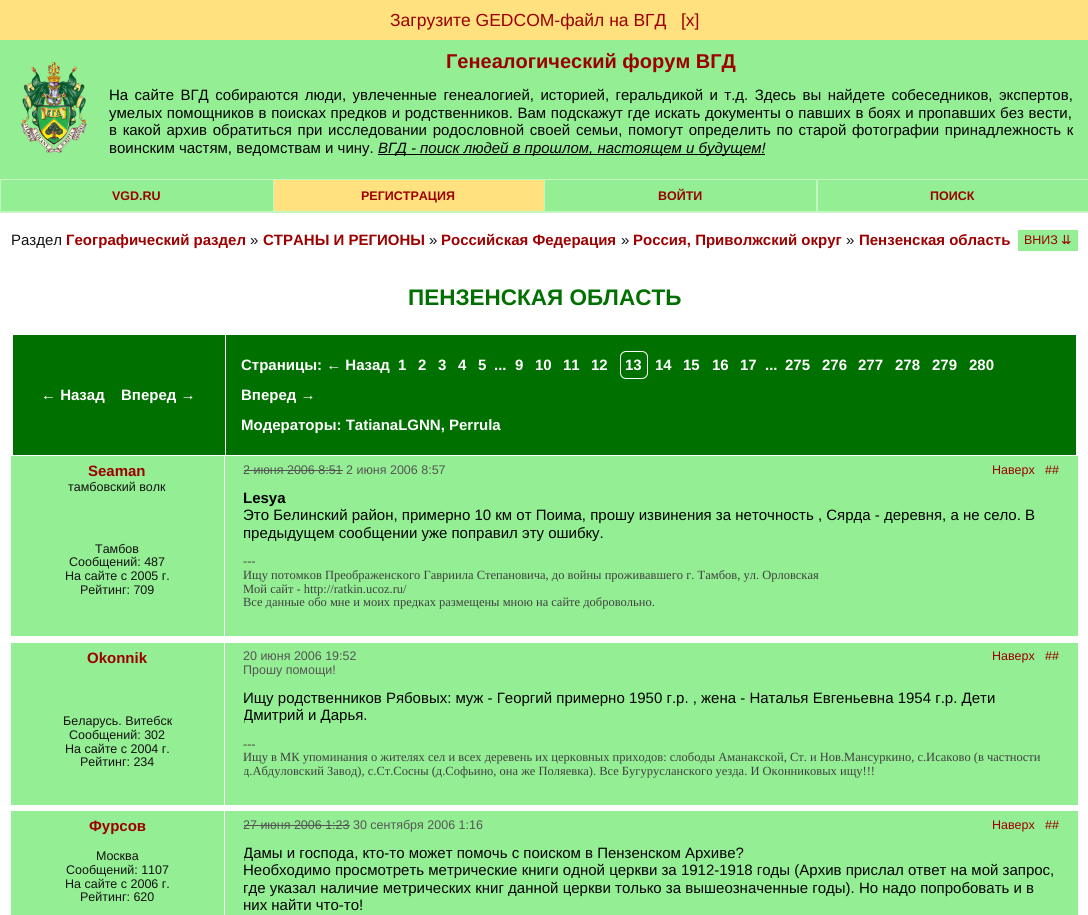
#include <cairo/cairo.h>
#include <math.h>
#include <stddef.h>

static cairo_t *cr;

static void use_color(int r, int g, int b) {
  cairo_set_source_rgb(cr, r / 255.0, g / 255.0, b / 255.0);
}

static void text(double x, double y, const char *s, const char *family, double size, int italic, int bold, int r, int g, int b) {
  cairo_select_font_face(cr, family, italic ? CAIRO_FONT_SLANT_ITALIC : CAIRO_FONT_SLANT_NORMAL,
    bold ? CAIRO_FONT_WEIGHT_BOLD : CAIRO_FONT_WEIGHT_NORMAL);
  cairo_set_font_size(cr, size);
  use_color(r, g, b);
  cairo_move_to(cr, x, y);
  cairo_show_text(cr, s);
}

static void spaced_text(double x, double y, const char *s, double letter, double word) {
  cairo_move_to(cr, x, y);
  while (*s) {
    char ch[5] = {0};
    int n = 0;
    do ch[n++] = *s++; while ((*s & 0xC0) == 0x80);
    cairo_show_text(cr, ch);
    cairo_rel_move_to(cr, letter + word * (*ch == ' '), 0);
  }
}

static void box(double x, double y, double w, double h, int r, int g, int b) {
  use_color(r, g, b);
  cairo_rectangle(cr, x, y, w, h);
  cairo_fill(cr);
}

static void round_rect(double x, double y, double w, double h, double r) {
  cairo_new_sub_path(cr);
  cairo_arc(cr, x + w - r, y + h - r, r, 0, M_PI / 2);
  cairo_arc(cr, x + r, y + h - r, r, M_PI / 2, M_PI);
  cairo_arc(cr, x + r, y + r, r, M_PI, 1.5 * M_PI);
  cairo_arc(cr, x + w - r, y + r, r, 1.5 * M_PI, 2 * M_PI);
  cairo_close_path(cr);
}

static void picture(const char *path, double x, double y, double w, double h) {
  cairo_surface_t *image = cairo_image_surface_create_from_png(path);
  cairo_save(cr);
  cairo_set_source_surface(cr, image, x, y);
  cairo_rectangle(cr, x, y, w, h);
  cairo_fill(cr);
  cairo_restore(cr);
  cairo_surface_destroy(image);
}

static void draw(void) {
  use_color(255, 255, 255);
  cairo_paint(cr);
  box(0, 0, 1088, 40, 255, 225, 127);
  box(0, 40, 1088, 139, 148, 238, 148);
  picture("img_01.png", 20, 62, 67, 91);
  box(378, 154, 387, 1, 0, 0, 0);
  box(0, 179, 1088, 34, 195, 246, 195);
  box(1, 180, 272, 31, 148, 238, 148);
  box(274, 180, 270, 31, 255, 225, 127);
  box(545, 180, 271, 31, 148, 238, 148);
  box(818, 180, 270, 31, 148, 238, 148);
  box(1018, 230, 60, 21, 148, 238, 148);
  box(13, 335, 212, 120, 0, 112, 0);
  box(226, 335, 850, 120, 0, 112, 0);
  round_rect(620.5, 351.5, 27, 27, 5.5);
  use_color(255, 255, 255);
  cairo_set_line_width(cr, 1);
  cairo_stroke(cr);
  box(11, 456, 213, 180, 148, 238, 148);
  box(225, 456, 853, 180, 148, 238, 148);
  box(244, 470, 99, 1, 85, 85, 85);
  box(11, 643, 213, 162, 148, 238, 148);
  box(225, 643, 853, 162, 148, 238, 148);
  box(11, 811, 213, 104, 148, 238, 148);
  box(225, 811, 853, 104, 148, 238, 148);
  box(244, 825, 106, 1, 85, 85, 85);
  text(390, 26, "Загрузите GEDCOM-файл на ВГД", "Liberation Sans", 17.5, 0, 0, 156, 0, 0);
  text(681, 26, "[х]", "Liberation Sans", 17.5, 0, 0, 156, 0, 0);
  text(446, 68, "Генеалогический форум ВГД", "Liberation Sans", 20, 0, 1, 156, 0, 0);
  cairo_select_font_face(cr, "Liberation Sans", CAIRO_FONT_SLANT_NORMAL, CAIRO_FONT_WEIGHT_NORMAL);
  cairo_set_font_size(cr, 15);
  use_color(0, 0, 0);
  spaced_text(109, 100, "На сайте ВГД собираются люди, увлеченные генеалогией, историей, геральдикой и т.д. Здесь вы найдете собеседников, экспертов,", 0, 2.25);
  spaced_text(109, 118, "умелых помощников в поисках предков и родственников. Вам подскажут где искать документы о павших в боях и пропавших без вести,", 0, 0.5);
  spaced_text(109, 135, "в какой архив обратиться при исследовании родословной своей семьи, помогут определить по старой фотографии принадлежность к", 0, 1.5);
  text(109, 153, "воинским частям, ведомствам и чину.", "Liberation Sans", 15, 0, 0, 0, 0, 0);
  text(378, 153, "ВГД - поиск людей в прошлом, настоящем и будущем!", "Liberation Sans", 15, 1, 0, 0, 0, 0);
  text(112, 200, "VGD.RU", "Liberation Sans", 12.5, 0, 1, 156, 0, 0);
  text(361, 200, "РЕГИСТРАЦИЯ", "Liberation Sans", 12.5, 0, 1, 156, 0, 0);
  text(658, 200, "ВОЙТИ", "Liberation Sans", 12.5, 0, 1, 156, 0, 0);
  text(930, 200, "ПОИСК", "Liberation Sans", 12.5, 0, 1, 156, 0, 0);
  text(11, 245, "Раздел", "Liberation Sans", 15, 0, 0, 17, 17, 17);
  text(66, 245, "Географический раздел", "Liberation Sans", 15, 0, 1, 156, 0, 0);
  text(250, 245, "»", "Liberation Sans", 15, 0, 0, 17, 17, 17);
  text(263, 245, "СТРАНЫ И РЕГИОНЫ", "Liberation Sans", 15, 0, 1, 156, 0, 0);
  text(429, 245, "»", "Liberation Sans", 15, 0, 0, 17, 17, 17);
  text(441, 245, "Российская Федерация", "Liberation Sans", 15, 0, 1, 156, 0, 0);
  text(621, 245, "»", "Liberation Sans", 15, 0, 0, 17, 17, 17);
  text(633, 245, "Россия, Приволжский округ", "Liberation Sans", 15, 0, 1, 156, 0, 0);
  text(846, 245, "»", "Liberation Sans", 15, 0, 0, 17, 17, 17);
  text(859, 245, "Пензенская область", "Liberation Sans", 15, 0, 1, 156, 0, 0);
  text(1024, 244, "ВНИЗ", "Liberation Sans", 12.5, 0, 0, 156, 0, 0);
  text(1061, 244, "⇊", "DejaVu Sans", 12.5, 0, 0, 156, 0, 0);
  text(408, 305, "ПЕНЗЕНСКАЯ ОБЛАСТЬ", "Liberation Sans", 22.5, 0, 1, 0, 112, 0);
  text(41, 400, "← Назад", "Liberation Sans", 15, 0, 1, 255, 255, 255);
  text(121, 400, "Вперед →", "Liberation Sans", 15, 0, 1, 255, 255, 255);
  text(241, 370, "Страницы: ← Назад", "Liberation Sans", 15, 0, 1, 255, 255, 255);
  text(398, 370, "1", "Liberation Sans", 15, 0, 1, 255, 255, 255);
  text(418, 370, "2", "Liberation Sans", 15, 0, 1, 255, 255, 255);
  text(438, 370, "3", "Liberation Sans", 15, 0, 1, 255, 255, 255);
  text(458, 370, "4", "Liberation Sans", 15, 0, 1, 255, 255, 255);
  text(478, 370, "5", "Liberation Sans", 15, 0, 1, 255, 255, 255);
  text(494, 370, "...", "Liberation Sans", 15, 0, 1, 255, 255, 255);
  text(515, 370, "9", "Liberation Sans", 15, 0, 1, 255, 255, 255);
  text(535, 370, "10", "Liberation Sans", 15, 0, 1, 255, 255, 255);
  text(563, 370, "11", "Liberation Sans", 15, 0, 1, 255, 255, 255);
  text(591, 370, "12", "Liberation Sans", 15, 0, 1, 255, 255, 255);
  text(625, 370, "13", "Liberation Sans", 15, 0, 1, 255, 255, 255);
  text(655, 370, "14", "Liberation Sans", 15, 0, 1, 255, 255, 255);
  text(683, 370, "15", "Liberation Sans", 15, 0, 1, 255, 255, 255);
  text(712, 370, "16", "Liberation Sans", 15, 0, 1, 255, 255, 255);
  text(740, 370, "17", "Liberation Sans", 15, 0, 1, 255, 255, 255);
  text(765, 370, "...", "Liberation Sans", 15, 0, 1, 255, 255, 255);
  text(785, 370, "275", "Liberation Sans", 15, 0, 1, 255, 255, 255);
  text(822, 370, "276", "Liberation Sans", 15, 0, 1, 255, 255, 255);
  text(858, 370, "277", "Liberation Sans", 15, 0, 1, 255, 255, 255);
  text(895, 370, "278", "Liberation Sans", 15, 0, 1, 255, 255, 255);
  text(932, 370, "279", "Liberation Sans", 15, 0, 1, 255, 255, 255);
  text(969, 370, "280", "Liberation Sans", 15, 0, 1, 255, 255, 255);
  text(241, 400, "Вперед →", "Liberation Sans", 15, 0, 1, 255, 255, 255);
  text(241, 430, "Модераторы: TatianaLGNN, Perrula", "Liberation Sans", 15, 0, 1, 255, 255, 255);
  text(88, 476, "Seaman", "Liberation Sans", 15, 0, 1, 156, 0, 0);
  text(68, 491, "тамбовский волк", "Liberation Sans", 12.5, 0, 0, 17, 17, 17);
  text(95, 553, "Тамбов", "Liberation Sans", 12.5, 0, 0, 17, 17, 17);
  text(69, 566, "Сообщений: 487", "Liberation Sans", 12.5, 0, 0, 17, 17, 17);
  text(65, 580, "На сайте с 2005 г.", "Liberation Sans", 12.5, 0, 0, 17, 17, 17);
  text(80, 594, "Рейтинг: 709", "Liberation Sans", 12.5, 0, 0, 17, 17, 17);
  text(243, 474, "2 июня 2006 8:51 2 июня 2006 8:57", "Liberation Sans", 12.5, 0, 0, 85, 85, 85);
  text(992, 474, "Наверх", "Liberation Sans", 12.5, 0, 0, 156, 0, 0);
  text(1045, 474, "##", "Liberation Sans", 12.5, 0, 0, 156, 0, 0);
  text(243, 503, "Lesya", "Liberation Sans", 15, 0, 1, 0, 0, 0);
  text(243, 520, "Это Белинский район, примерно 10 км от Поима, прошу извинения за неточность , Сярда - деревня, а не село. В", "Liberation Sans", 15, 0, 0, 0, 0, 0);
  cairo_save(cr);
  cairo_rectangle(cr, 244, 489, 815, 52);
  cairo_clip(cr);
  text(243, 538, "предыдущем сообщении уже поправил эту ошибку.", "Liberation Sans", 15, 0, 0, 0, 0, 0);
  cairo_restore(cr);
  text(243, 565, "---", "Liberation Serif", 12.5, 0, 0, 64, 64, 64);
  text(243, 579, "Ищу потомков Преображенского Гавриила Степановича, до войны проживавшего г. Тамбов, ул. Орловская", "Liberation Serif", 12.5, 0, 0, 64, 64, 64);
  text(243, 593, "Мой сайт - http://ratkin.ucoz.ru/", "Liberation Serif", 12.5, 0, 0, 64, 64, 64);
  text(243, 606, "Все данные обо мне и моих предках размещены мною на сайте добровольно.", "Liberation Serif", 12.5, 0, 0, 64, 64, 64);
  text(87, 663, "Okonnik", "Liberation Sans", 15, 0, 1, 156, 0, 0);
  text(63, 725, "Беларусь. Витебск", "Liberation Sans", 12.5, 0, 0, 17, 17, 17);
  text(69, 739, "Сообщений: 302", "Liberation Sans", 12.5, 0, 0, 17, 17, 17);
  text(65, 753, "На сайте с 2004 г.", "Liberation Sans", 12.5, 0, 0, 17, 17, 17);
  text(80, 766, "Рейтинг: 234", "Liberation Sans", 12.5, 0, 0, 17, 17, 17);
  text(243, 660, "20 июня 2006 19:52", "Liberation Sans", 12.5, 0, 0, 85, 85, 85);
  text(992, 660, "Наверх", "Liberation Sans", 12.5, 0, 0, 156, 0, 0);
  text(1045, 660, "##", "Liberation Sans", 12.5, 0, 0, 156, 0, 0);
  text(243, 674, "Прошу помощи!", "Liberation Sans", 12.5, 0, 0, 85, 85, 85);
  text(243, 703, "Ищу родственников Рябовых: муж - Георгий примерно 1950 г.р. , жена - Наталья Евгеньевна 1954 г.р. Дети", "Liberation Sans", 15, 0, 0, 0, 0, 0);
  cairo_save(cr);
  cairo_rectangle(cr, 244, 689, 815, 35);
  cairo_clip(cr);
  text(243, 720, "Дмитрий и Дарья.", "Liberation Sans", 15, 0, 0, 0, 0, 0);
  cairo_restore(cr);
  text(243, 748, "---", "Liberation Serif", 12.5, 0, 0, 64, 64, 64);
  text(243, 761, "Ищу в МК упоминания о жителях сел и всех деревень их церковных приходов: слободы Аманакской, Ст. и Нов.Мансуркино, с.Исаково (в частности", "Liberation Serif", 12.5, 0, 0, 64, 64, 64);
  cairo_save(cr);
  cairo_rectangle(cr, 244, 736, 815, 42);
  cairo_clip(cr);
  text(243, 775, "д.Абдуловский Завод), с.Ст.Сосны (д.Софьино, она же Поляевка). Все Бугурусланского уезда. И Оконниковых ищу!!!", "Liberation Serif", 12.5, 0, 0, 64, 64, 64);
  cairo_restore(cr);
  text(89, 831, "Фурсов", "Liberation Sans", 15, 0, 1, 156, 0, 0);
  text(96, 860, "Москва", "Liberation Sans", 12.5, 0, 0, 17, 17, 17);
  text(66, 874, "Сообщений: 1107", "Liberation Sans", 12.5, 0, 0, 17, 17, 17);
  text(65, 888, "На сайте с 2006 г.", "Liberation Sans", 12.5, 0, 0, 17, 17, 17);
  text(80, 901, "Рейтинг: 620", "Liberation Sans", 12.5, 0, 0, 17, 17, 17);
  text(243, 829, "27 июня 2006 1:23 30 сентября 2006 1:16", "Liberation Sans", 12.5, 0, 0, 85, 85, 85);
  text(992, 829, "Наверх", "Liberation Sans", 12.5, 0, 0, 156, 0, 0);
  text(1045, 829, "##", "Liberation Sans", 12.5, 0, 0, 156, 0, 0);
  cairo_save(cr);
  cairo_rectangle(cr, 244, 844, 815, 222);
  cairo_clip(cr);
  text(243, 858, "Дамы и господа, кто-то может помочь с поиском в Пензенском Архиве?", "Liberation Sans", 15, 0, 0, 0, 0, 0);
  cairo_restore(cr);
  text(243, 875, "Необходимо просмотреть метрические книги одной церкви за 1912-1918 годы (Архив прислал ответ на мой запрос,", "Liberation Sans", 15, 0, 0, 0, 0, 0);
  text(243, 893, "где указал наличие метрических книг данной церкви только за вышеозначенные годы). Но надо попробовать и в", "Liberation Sans", 15, 0, 0, 0, 0, 0);
  text(243, 910, "них найти что-то!", "Liberation Sans", 15, 0, 0, 0, 0, 0);
}

int main(void) {
  cairo_surface_t *surface = cairo_image_surface_create(CAIRO_FORMAT_RGB24, 1088, 915);
  cr = cairo_create(surface);
  cairo_font_options_t *options = cairo_font_options_create();
  cairo_font_options_set_hint_metrics(options, CAIRO_HINT_METRICS_OFF);
  cairo_font_options_set_hint_style(options, CAIRO_HINT_STYLE_NONE);
  cairo_set_font_options(cr, options);
  cairo_set_miter_limit(cr, 4);
  draw();
  cairo_surface_write_to_png(surface, "out.png");
  cairo_font_options_destroy(options);
  cairo_destroy(cr);
  cairo_surface_destroy(surface);
  return 0;
}
